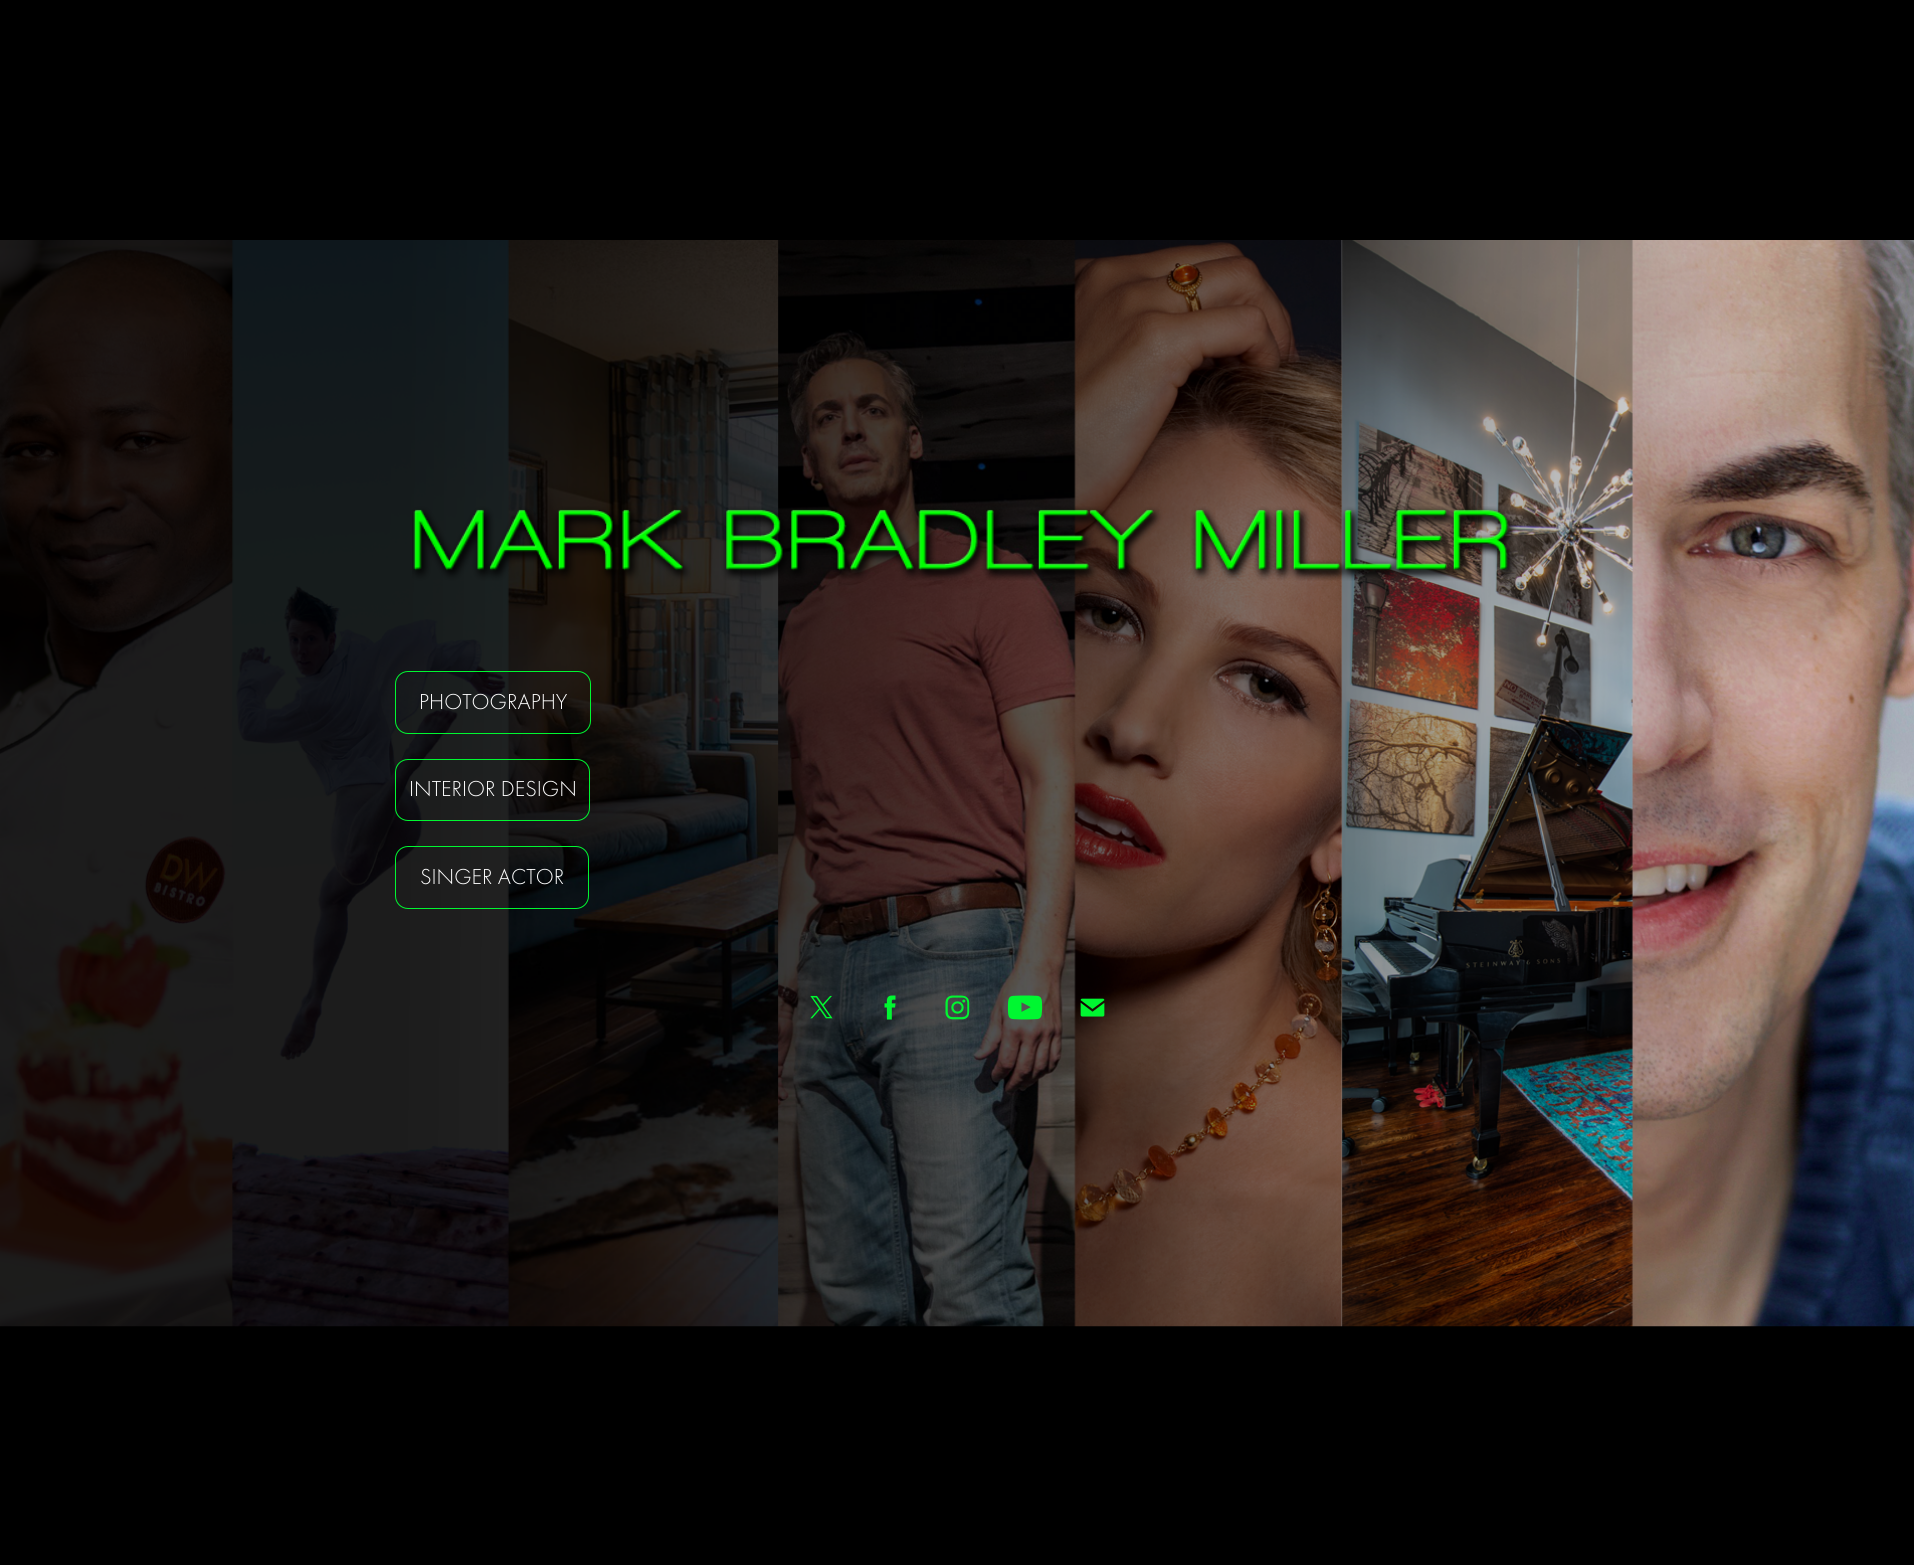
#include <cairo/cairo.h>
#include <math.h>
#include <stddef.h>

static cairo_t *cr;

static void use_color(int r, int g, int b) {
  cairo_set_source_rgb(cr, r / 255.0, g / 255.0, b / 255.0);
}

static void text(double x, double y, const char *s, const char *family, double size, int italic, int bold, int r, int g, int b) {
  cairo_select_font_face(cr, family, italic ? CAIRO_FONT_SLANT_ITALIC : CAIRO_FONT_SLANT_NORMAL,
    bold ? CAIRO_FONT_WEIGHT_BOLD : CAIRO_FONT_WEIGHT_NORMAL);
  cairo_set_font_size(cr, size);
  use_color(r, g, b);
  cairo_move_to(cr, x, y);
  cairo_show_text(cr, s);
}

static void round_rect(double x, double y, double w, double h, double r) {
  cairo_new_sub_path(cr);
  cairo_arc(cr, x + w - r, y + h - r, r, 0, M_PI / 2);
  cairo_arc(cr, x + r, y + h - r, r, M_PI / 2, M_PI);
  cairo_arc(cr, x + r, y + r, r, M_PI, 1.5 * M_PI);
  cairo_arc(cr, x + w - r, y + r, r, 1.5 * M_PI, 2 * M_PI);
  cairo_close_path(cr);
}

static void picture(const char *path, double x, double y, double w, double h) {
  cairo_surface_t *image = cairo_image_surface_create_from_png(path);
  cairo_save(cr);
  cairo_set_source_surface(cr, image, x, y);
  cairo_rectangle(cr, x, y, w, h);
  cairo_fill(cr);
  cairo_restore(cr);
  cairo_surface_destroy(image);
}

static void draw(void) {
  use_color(0, 0, 0);
  cairo_paint(cr);
  picture("img_01.png", 0, 240, 1914, 1087);
  picture("img_02.png", 412, 506, 1106, 75);
  round_rect(395.5, 671.5, 195, 62, 12.5);
  use_color(0, 247, 49);
  cairo_set_line_width(cr, 1);
  cairo_stroke(cr);
  round_rect(395.5, 759.5, 194, 61, 12.5);
  cairo_stroke(cr);
  round_rect(395.5, 846.5, 193, 62, 12.5);
  cairo_stroke(cr);
  picture("img_03.png", 810, 995, 23, 24);
  picture("img_04.png", 884, 995, 12, 25);
  picture("img_05.png", 945, 995, 25, 25);
  picture("img_06.png", 1007, 995, 36, 25);
  picture("img_07.png", 1080, 998, 25, 19);
  text(419, 709, "PHOTOGRAPHY", "Futura PT Light", 22.5, 0, 0, 255, 255, 255);
  text(409, 796, "INTERIOR DESIGN", "Futura PT Light", 22.5, 0, 0, 255, 255, 255);
  text(420, 884, "SINGER ACTOR", "Futura PT Light", 22.5, 0, 0, 255, 255, 255);
}

int main(void) {
  cairo_surface_t *surface = cairo_image_surface_create(CAIRO_FORMAT_RGB24, 1914, 1565);
  cr = cairo_create(surface);
  cairo_font_options_t *options = cairo_font_options_create();
  cairo_font_options_set_hint_metrics(options, CAIRO_HINT_METRICS_OFF);
  cairo_font_options_set_hint_style(options, CAIRO_HINT_STYLE_NONE);
  cairo_set_font_options(cr, options);
  cairo_set_miter_limit(cr, 4);
  draw();
  cairo_surface_write_to_png(surface, "out.png");
  cairo_font_options_destroy(options);
  cairo_destroy(cr);
  cairo_surface_destroy(surface);
  return 0;
}
